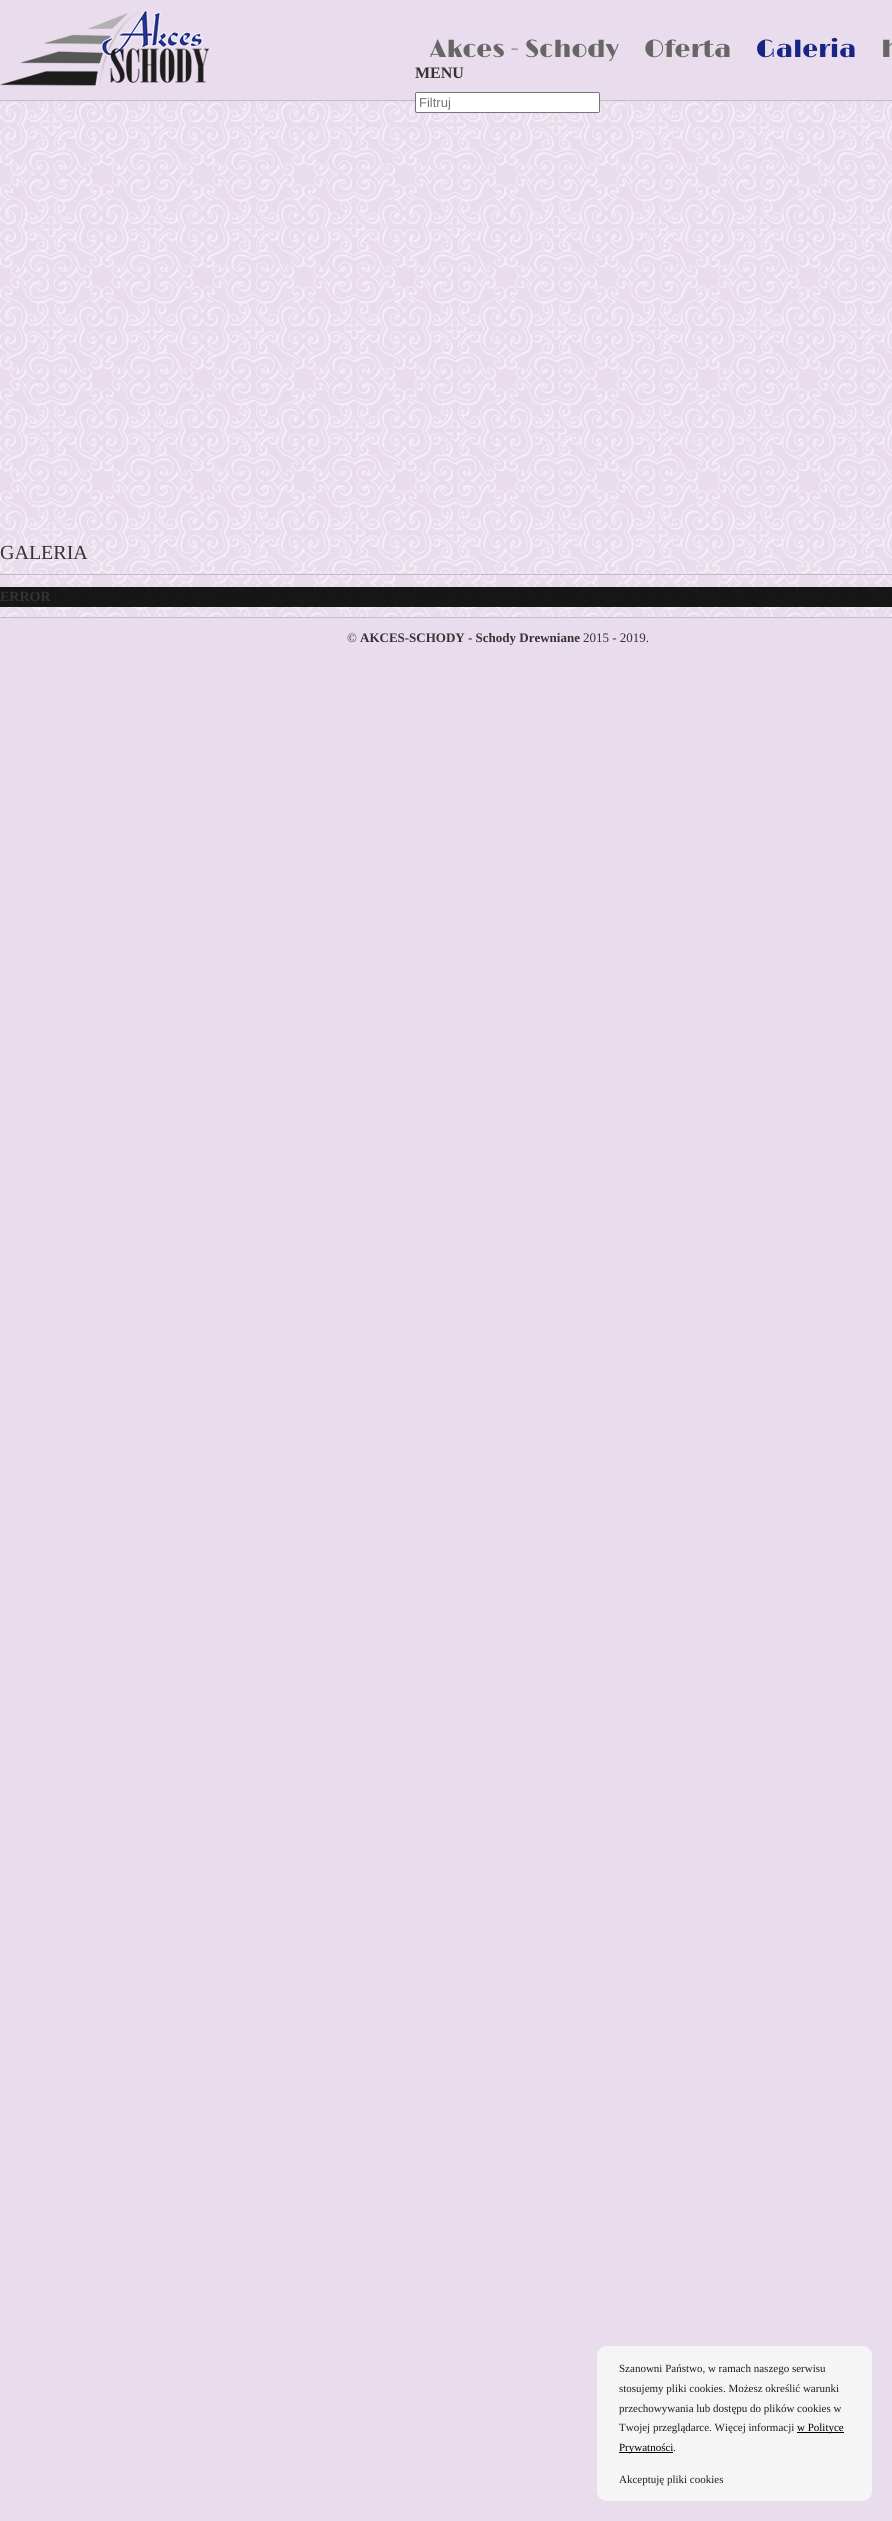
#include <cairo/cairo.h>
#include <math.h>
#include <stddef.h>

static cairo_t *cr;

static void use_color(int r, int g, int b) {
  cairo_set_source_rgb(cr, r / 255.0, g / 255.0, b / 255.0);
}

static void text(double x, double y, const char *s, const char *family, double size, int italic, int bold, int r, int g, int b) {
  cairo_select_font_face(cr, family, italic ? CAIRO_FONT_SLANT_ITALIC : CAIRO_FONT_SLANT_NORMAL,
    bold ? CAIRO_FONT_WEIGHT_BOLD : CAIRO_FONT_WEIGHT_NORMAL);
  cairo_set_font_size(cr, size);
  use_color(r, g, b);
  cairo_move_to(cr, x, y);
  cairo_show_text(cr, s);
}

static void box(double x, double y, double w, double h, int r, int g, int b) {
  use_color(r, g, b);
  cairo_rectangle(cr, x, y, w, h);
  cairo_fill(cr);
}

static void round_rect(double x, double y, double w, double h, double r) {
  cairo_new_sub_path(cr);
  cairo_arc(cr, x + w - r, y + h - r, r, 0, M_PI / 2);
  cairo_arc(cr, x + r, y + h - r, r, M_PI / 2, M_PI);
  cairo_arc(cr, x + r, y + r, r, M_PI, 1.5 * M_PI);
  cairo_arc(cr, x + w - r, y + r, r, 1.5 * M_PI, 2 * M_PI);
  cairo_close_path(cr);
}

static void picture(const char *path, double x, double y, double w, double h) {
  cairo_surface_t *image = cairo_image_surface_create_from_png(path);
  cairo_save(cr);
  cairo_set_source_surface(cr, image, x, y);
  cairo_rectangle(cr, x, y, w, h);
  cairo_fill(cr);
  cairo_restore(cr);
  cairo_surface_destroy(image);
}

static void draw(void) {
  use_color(233, 220, 236);
  cairo_paint(cr);
  box(0, 100, 892, 1, 191, 190, 190);
  picture("img_01.png", 0, 10, 209, 78);
  picture("img_02.png", 0, 101, 892, 516);
  use_color(255, 255, 255);
  round_rect(415.5, 92.5, 184, 20, 1.5);
  cairo_fill_preserve(cr);
  use_color(118, 118, 118);
  cairo_set_line_width(cr, 1);
  cairo_stroke(cr);
  box(0, 574, 892, 1, 191, 190, 190);
  cairo_set_source_rgba(cr, 0, 0, 0, 0.9);
  cairo_rectangle(cr, 0, 587, 892, 20);
  cairo_fill(cr);
  box(0, 617, 892, 1, 191, 190, 190);
  use_color(244, 245, 244);
  round_rect(597, 2346, 275, 155, 10);
  cairo_fill(cr);
  box(797, 2432, 47, 1, 0, 0, 0);
  box(619, 2452, 54, 1, 0, 0, 0);
  text(430, 57, "Akces - Schody", "Limelight Light", 25, 0, 0, 102, 102, 102);
  text(644, 57, "Oferta", "Limelight Light", 25, 0, 0, 102, 102, 102);
  text(756, 57, "Galeria", "Limelight Light", 25, 0, 0, 25, 37, 132);
  text(881, 57, "K", "Limelight Light", 25, 0, 0, 102, 102, 102);
  text(415, 78, "MENU", "Liberation Serif", 16, 0, 1, 51, 51, 51);
  text(419, 107, "Filtruj", "Liberation Sans", 13, 0, 0, 117, 117, 117);
  text(0, 559, "GALERIA", "Liberation Serif", 20, 0, 0, 51, 51, 51);
  text(0, 601, "ERROR", "Liberation Serif", 14, 0, 1, 51, 51, 51);
  text(347, 642, "©", "Liberation Serif", 13, 0, 0, 51, 51, 51);
  text(360, 642, "AKCES-SCHODY - Schody Drewniane", "Liberation Serif", 13, 0, 1, 51, 51, 51);
  text(583, 642, "2015 - 2019.", "Liberation Serif", 13, 0, 0, 51, 51, 51);
  text(619, 2372, "Szanowni Państwo, w ramach naszego serwisu", "Liberation Serif", 11, 0, 0, 29, 29, 29);
  text(619, 2392, "stosujemy pliki cookies. Możesz określić warunki", "Liberation Serif", 11, 0, 0, 29, 29, 29);
  text(619, 2412, "przechowywania lub dostępu do plików cookies w", "Liberation Serif", 11, 0, 0, 29, 29, 29);
  text(619, 2431, "Twojej przeglądarce. Więcej informacji", "Liberation Serif", 11, 0, 0, 29, 29, 29);
  text(797, 2431, "w Polityce", "Liberation Serif", 11, 0, 0, 0, 0, 0);
  text(619, 2451, "Prywatności", "Liberation Serif", 11, 0, 0, 0, 0, 0);
  text(673, 2451, ".", "Liberation Serif", 11, 0, 0, 29, 29, 29);
  text(619, 2483, "Akceptuję pliki cookies", "Liberation Serif", 11, 0, 0, 29, 29, 29);
}

int main(void) {
  cairo_surface_t *surface = cairo_image_surface_create(CAIRO_FORMAT_RGB24, 892, 2521);
  cr = cairo_create(surface);
  cairo_font_options_t *options = cairo_font_options_create();
  cairo_font_options_set_hint_metrics(options, CAIRO_HINT_METRICS_OFF);
  cairo_font_options_set_hint_style(options, CAIRO_HINT_STYLE_NONE);
  cairo_set_font_options(cr, options);
  cairo_set_miter_limit(cr, 4);
  draw();
  cairo_surface_write_to_png(surface, "out.png");
  cairo_font_options_destroy(options);
  cairo_destroy(cr);
  cairo_surface_destroy(surface);
  return 0;
}
